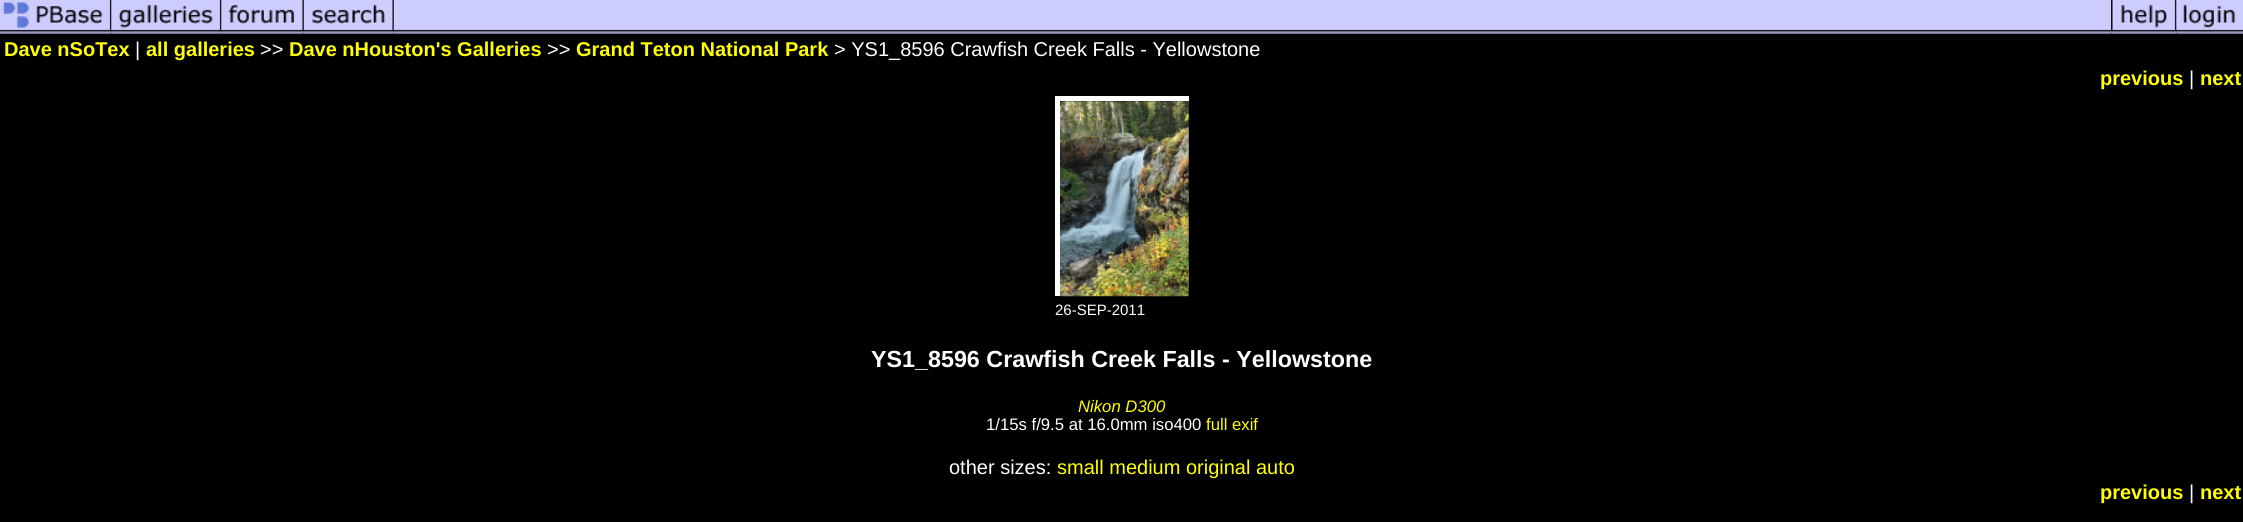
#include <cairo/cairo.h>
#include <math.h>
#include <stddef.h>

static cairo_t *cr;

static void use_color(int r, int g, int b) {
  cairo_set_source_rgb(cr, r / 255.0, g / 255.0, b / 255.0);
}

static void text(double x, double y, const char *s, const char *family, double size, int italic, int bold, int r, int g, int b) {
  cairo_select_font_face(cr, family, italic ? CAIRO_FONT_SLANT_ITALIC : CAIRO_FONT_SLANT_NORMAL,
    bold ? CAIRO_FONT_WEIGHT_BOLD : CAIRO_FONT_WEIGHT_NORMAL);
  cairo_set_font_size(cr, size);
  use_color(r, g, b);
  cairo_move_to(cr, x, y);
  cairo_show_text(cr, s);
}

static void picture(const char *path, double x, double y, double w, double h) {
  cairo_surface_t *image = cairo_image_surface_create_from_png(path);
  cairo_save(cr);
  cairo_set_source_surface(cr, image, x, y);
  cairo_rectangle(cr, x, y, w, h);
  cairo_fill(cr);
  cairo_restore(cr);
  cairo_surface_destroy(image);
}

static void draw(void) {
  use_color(0, 0, 0);
  cairo_paint(cr);
  picture("img_01.png", 0, 0, 112, 34);
  picture("img_02.png", 111, 0, 111, 34);
  picture("img_03.png", 221, 0, 83, 34);
  picture("img_04.png", 303, 0, 91, 34);
  picture("img_05.png", 393, 0, 1719, 34);
  picture("img_06.png", 2111, 0, 66, 34);
  picture("img_07.png", 2176, 0, 67, 34);
  cairo_save(cr);
  cairo_rectangle(cr, 1055, 96, 134, 200);
  cairo_clip(cr);
  cairo_rectangle(cr, 1057.5, 98.5, 138, 203);
  use_color(255, 255, 255);
  cairo_set_line_width(cr, 5);
  cairo_stroke(cr);
  cairo_restore(cr);
  picture("img_08.png", 1060, 101, 129, 196);
  text(4, 56, "Dave nSoTex", "Liberation Sans", 20, 0, 1, 255, 255, 0);
  text(135, 56, "|", "Liberation Sans", 20, 0, 0, 255, 255, 255);
  text(146, 56, "all galleries", "Liberation Sans", 20, 0, 1, 255, 255, 0);
  text(260, 56, ">>", "Liberation Sans", 20, 0, 0, 255, 255, 255);
  text(289, 56, "Dave nHouston's Galleries", "Liberation Sans", 20, 0, 1, 255, 255, 0);
  text(547, 56, ">>", "Liberation Sans", 20, 0, 0, 255, 255, 255);
  text(576, 56, "Grand Teton National Park", "Liberation Sans", 20, 0, 1, 255, 255, 0);
  text(834, 56, "> YS1_8596 Crawfish Creek Falls - Yellowstone", "Liberation Sans", 20, 0, 0, 255, 255, 255);
  text(2100, 85, "previous", "Liberation Sans", 20, 0, 1, 255, 255, 0);
  text(2189, 85, "|", "Liberation Sans", 20, 0, 0, 255, 255, 255);
  text(2200, 85, "next", "Liberation Sans", 20, 0, 1, 255, 255, 0);
  text(1055, 315, "26-SEP-2011", "Liberation Sans", 15, 0, 0, 255, 255, 255);
  text(871, 367, "YS1_8596 Crawfish Creek Falls - Yellowstone", "Liberation Sans", 23.3, 0, 1, 255, 255, 255);
  text(1078, 412, "Nikon D300", "Liberation Sans", 16.7, 1, 0, 255, 255, 0);
  text(986, 430, "1/15s f/9.5 at 16.0mm iso400", "Liberation Sans", 16.7, 0, 0, 255, 255, 255);
  text(1206, 430, "full exif", "Liberation Sans", 16.7, 0, 0, 255, 255, 0);
  text(949, 474, "other sizes:", "Liberation Sans", 20, 0, 0, 255, 255, 255);
  text(1057, 474, "small medium original auto", "Liberation Sans", 20, 0, 0, 255, 255, 0);
  text(2100, 499, "previous", "Liberation Sans", 20, 0, 1, 255, 255, 0);
  text(2189, 499, "|", "Liberation Sans", 20, 0, 0, 255, 255, 255);
  text(2200, 499, "next", "Liberation Sans", 20, 0, 1, 255, 255, 0);
}

int main(void) {
  cairo_surface_t *surface = cairo_image_surface_create(CAIRO_FORMAT_RGB24, 2243, 522);
  cr = cairo_create(surface);
  cairo_font_options_t *options = cairo_font_options_create();
  cairo_font_options_set_hint_metrics(options, CAIRO_HINT_METRICS_OFF);
  cairo_font_options_set_hint_style(options, CAIRO_HINT_STYLE_NONE);
  cairo_set_font_options(cr, options);
  cairo_set_miter_limit(cr, 4);
  draw();
  cairo_surface_write_to_png(surface, "out.png");
  cairo_font_options_destroy(options);
  cairo_destroy(cr);
  cairo_surface_destroy(surface);
  return 0;
}
